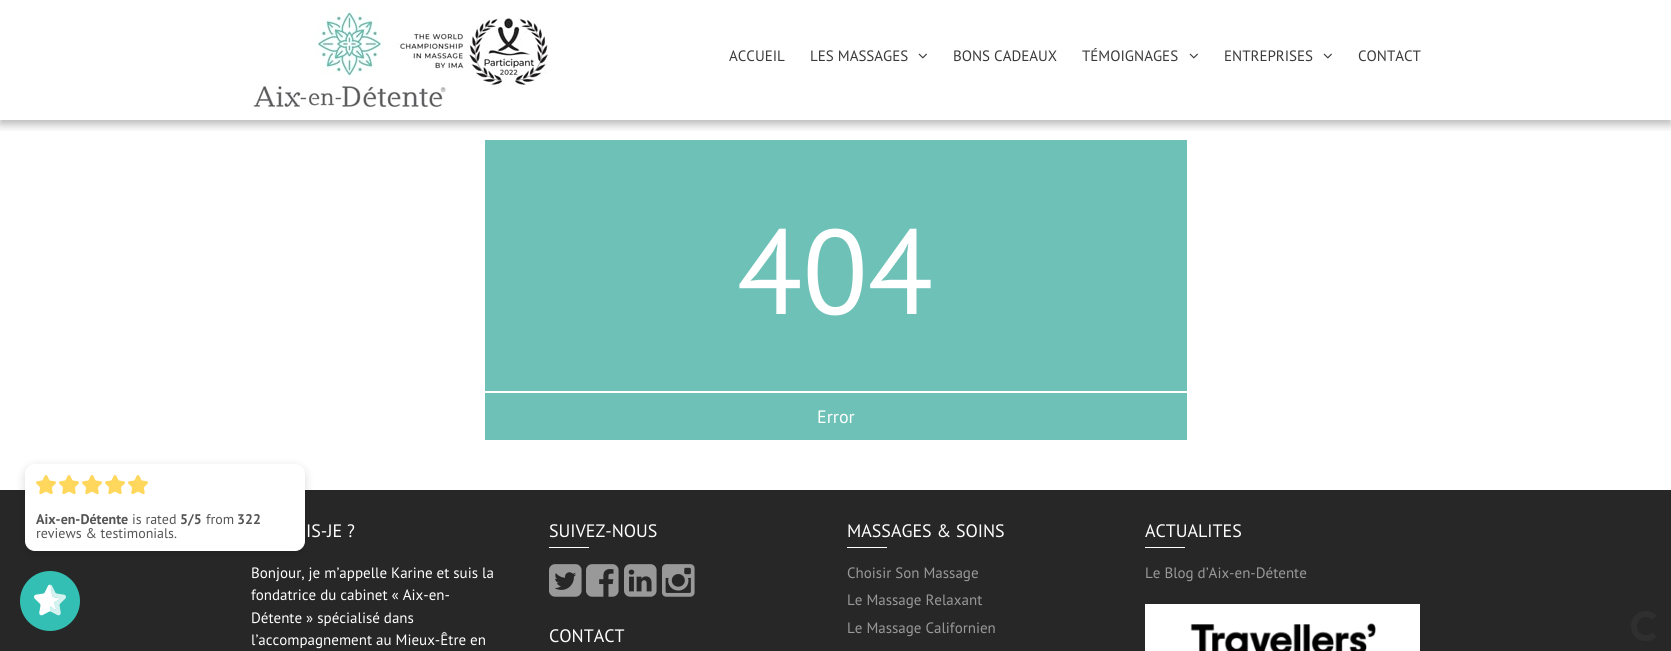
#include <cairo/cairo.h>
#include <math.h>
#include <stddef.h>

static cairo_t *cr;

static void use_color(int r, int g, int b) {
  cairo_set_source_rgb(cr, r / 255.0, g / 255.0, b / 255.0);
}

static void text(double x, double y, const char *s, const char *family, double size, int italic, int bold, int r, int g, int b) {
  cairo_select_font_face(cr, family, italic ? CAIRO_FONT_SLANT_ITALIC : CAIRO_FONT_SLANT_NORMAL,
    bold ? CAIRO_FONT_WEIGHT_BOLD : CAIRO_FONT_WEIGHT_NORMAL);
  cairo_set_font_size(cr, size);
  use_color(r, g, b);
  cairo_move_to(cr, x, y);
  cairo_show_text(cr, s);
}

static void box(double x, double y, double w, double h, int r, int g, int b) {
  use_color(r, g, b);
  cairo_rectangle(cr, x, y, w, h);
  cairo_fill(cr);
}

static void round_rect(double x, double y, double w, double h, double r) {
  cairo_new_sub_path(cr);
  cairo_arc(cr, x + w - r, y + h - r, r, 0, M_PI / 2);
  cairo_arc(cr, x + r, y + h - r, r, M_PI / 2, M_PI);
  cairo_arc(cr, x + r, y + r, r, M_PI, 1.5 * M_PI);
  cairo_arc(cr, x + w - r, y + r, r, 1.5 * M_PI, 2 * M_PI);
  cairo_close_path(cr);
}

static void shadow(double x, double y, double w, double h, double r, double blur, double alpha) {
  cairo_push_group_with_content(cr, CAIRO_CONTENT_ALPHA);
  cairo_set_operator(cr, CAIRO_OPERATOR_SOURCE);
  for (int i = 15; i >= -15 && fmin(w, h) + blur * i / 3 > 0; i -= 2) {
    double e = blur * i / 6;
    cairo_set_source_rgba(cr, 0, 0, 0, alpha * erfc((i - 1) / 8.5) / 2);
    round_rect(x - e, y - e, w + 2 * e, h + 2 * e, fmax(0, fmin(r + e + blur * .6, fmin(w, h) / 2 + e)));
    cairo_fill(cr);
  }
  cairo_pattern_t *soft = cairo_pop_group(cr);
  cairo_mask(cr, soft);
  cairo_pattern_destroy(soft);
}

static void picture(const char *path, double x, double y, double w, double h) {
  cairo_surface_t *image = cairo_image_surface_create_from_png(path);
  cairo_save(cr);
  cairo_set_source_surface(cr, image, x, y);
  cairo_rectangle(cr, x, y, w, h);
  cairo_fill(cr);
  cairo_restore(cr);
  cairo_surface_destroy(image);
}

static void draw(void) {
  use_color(255, 255, 255);
  cairo_paint(cr);
  box(0, 490, 1671, 161, 39, 39, 39);
  use_color(0, 0, 0);
  shadow(25, 467, 280, 87, 10, 5, 0.15);
  use_color(255, 255, 255);
  round_rect(25.5, 464.5, 279, 86, 9.5);
  cairo_fill_preserve(cr);
  cairo_set_line_width(cr, 1);
  cairo_stroke(cr);
  picture("img_01.png", 36, 475, 20, 19);
  picture("img_01.png", 59, 475, 20, 19);
  picture("img_01.png", 82, 475, 20, 19);
  picture("img_01.png", 105, 475, 20, 19);
  picture("img_01.png", 128, 475, 20, 19);
  use_color(51, 191, 179);
  cairo_arc(cr, 50, 601, 30, 0, 2 * M_PI);
  cairo_fill(cr);
  picture("img_02.png", 34, 584, 32, 32);
  cairo_save(cr);
  cairo_rectangle(cr, 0, 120, 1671, 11);
  cairo_clip(cr);
  use_color(0, 0, 0);
  shadow(0, 4, 1671, 120, 0, 5, 0.3);
  cairo_restore(cr);
  picture("img_03.png", 253, 10, 296, 99);
  picture("img_04.png", 918, 53, 9, 6);
  picture("img_04.png", 1189, 53, 9, 6);
  picture("img_04.png", 1323, 53, 9, 6);
  box(485, 140, 702, 300, 110, 193, 182);
  box(485, 391, 702, 2, 255, 255, 255);
  box(549, 547, 40, 1, 255, 255, 255);
  picture("img_05.png", 549, 564, 33, 33);
  picture("img_06.png", 586, 564, 33, 33);
  picture("img_07.png", 624, 564, 33, 33);
  picture("img_08.png", 662, 564, 33, 33);
  box(847, 547, 40, 1, 255, 255, 255);
  box(1145, 547, 40, 1, 255, 255, 255);
  picture("img_09.png", 1145, 604, 275, 47);
  cairo_new_path(cr);
  cairo_move_to(cr, 1654.5, 634.5);
  cairo_curve_to(cr, 1651.5, 637.5, 1647.5, 638.5, 1643.5, 638);
  cairo_curve_to(cr, 1629.5, 635, 1631.5, 614, 1646, 614);
  cairo_curve_to(cr, 1649, 614, 1652.5, 615.5, 1654.5, 617.5);
  use_color(47, 47, 47);
  cairo_set_line_width(cr, 6);
  cairo_stroke(cr);
  text(36, 524, "Aix-en-Détente", "PT Sans", 14, 0, 1, 85, 85, 85);
  text(132, 524, "is rated", "PT Sans", 14, 0, 0, 85, 85, 85);
  text(180, 524, "5/5", "PT Sans", 14, 0, 1, 85, 85, 85);
  text(206, 524, "from", "PT Sans", 14, 0, 0, 85, 85, 85);
  text(237, 524, "322", "PT Sans", 14, 0, 1, 85, 85, 85);
  text(36, 538, "reviews & testimonials.", "PT Sans", 14, 0, 0, 85, 85, 85);
  text(729, 61, "ACCUEIL", "PT Sans", 15, 0, 0, 58, 58, 58);
  text(810, 61, "LES MASSAGES", "PT Sans", 15, 0, 0, 58, 58, 58);
  text(953, 61, "BONS CADEAUX", "PT Sans", 15, 0, 0, 58, 58, 58);
  text(1082, 61, "TÉMOIGNAGES", "PT Sans", 15, 0, 0, 58, 58, 58);
  text(1224, 61, "ENTREPRISES", "PT Sans", 15, 0, 0, 58, 58, 58);
  text(1358, 61, "CONTACT", "PT Sans", 15, 0, 0, 58, 58, 58);
  text(737, 314, "404", "PT Sans", 120, 0, 0, 255, 255, 255);
  text(817, 423, "Error", "PT Sans", 18, 0, 0, 255, 255, 255);
  text(306, 537, "IS-JE ?", "PT Sans", 18, 0, 0, 255, 255, 255);
  text(251, 578, "Bonjour, je m’appelle Karine et suis la", "PT Sans", 15, 0, 0, 255, 255, 255);
  text(251, 600, "fondatrice du cabinet « Aix-en-", "PT Sans", 15, 0, 0, 255, 255, 255);
  text(251, 623, "Détente » spécialisé dans", "PT Sans", 15, 0, 0, 255, 255, 255);
  text(251, 645, "l’accompagnement au Mieux-Être en", "PT Sans", 15, 0, 0, 255, 255, 255);
  text(549, 537, "SUIVEZ-NOUS", "PT Sans", 18, 0, 0, 255, 255, 255);
  text(549, 642, "CONTACT", "PT Sans", 18, 0, 0, 255, 255, 255);
  text(847, 537, "MASSAGES & SOINS", "PT Sans", 18, 0, 0, 255, 255, 255);
  text(847, 578, "Choisir Son Massage", "PT Sans", 15, 0, 0, 153, 153, 153);
  text(847, 605, "Le Massage Relaxant", "PT Sans", 15, 0, 0, 153, 153, 153);
  text(847, 633, "Le Massage Californien", "PT Sans", 15, 0, 0, 153, 153, 153);
  text(1145, 537, "ACTUALITES", "PT Sans", 18, 0, 0, 255, 255, 255);
  text(1145, 578, "Le Blog d’Aix-en-Détente", "PT Sans", 15, 0, 0, 153, 153, 153);
}

int main(void) {
  cairo_surface_t *surface = cairo_image_surface_create(CAIRO_FORMAT_RGB24, 1671, 651);
  cr = cairo_create(surface);
  cairo_font_options_t *options = cairo_font_options_create();
  cairo_font_options_set_hint_metrics(options, CAIRO_HINT_METRICS_OFF);
  cairo_font_options_set_hint_style(options, CAIRO_HINT_STYLE_NONE);
  cairo_set_font_options(cr, options);
  cairo_set_miter_limit(cr, 4);
  draw();
  cairo_surface_write_to_png(surface, "out.png");
  cairo_font_options_destroy(options);
  cairo_destroy(cr);
  cairo_surface_destroy(surface);
  return 0;
}
